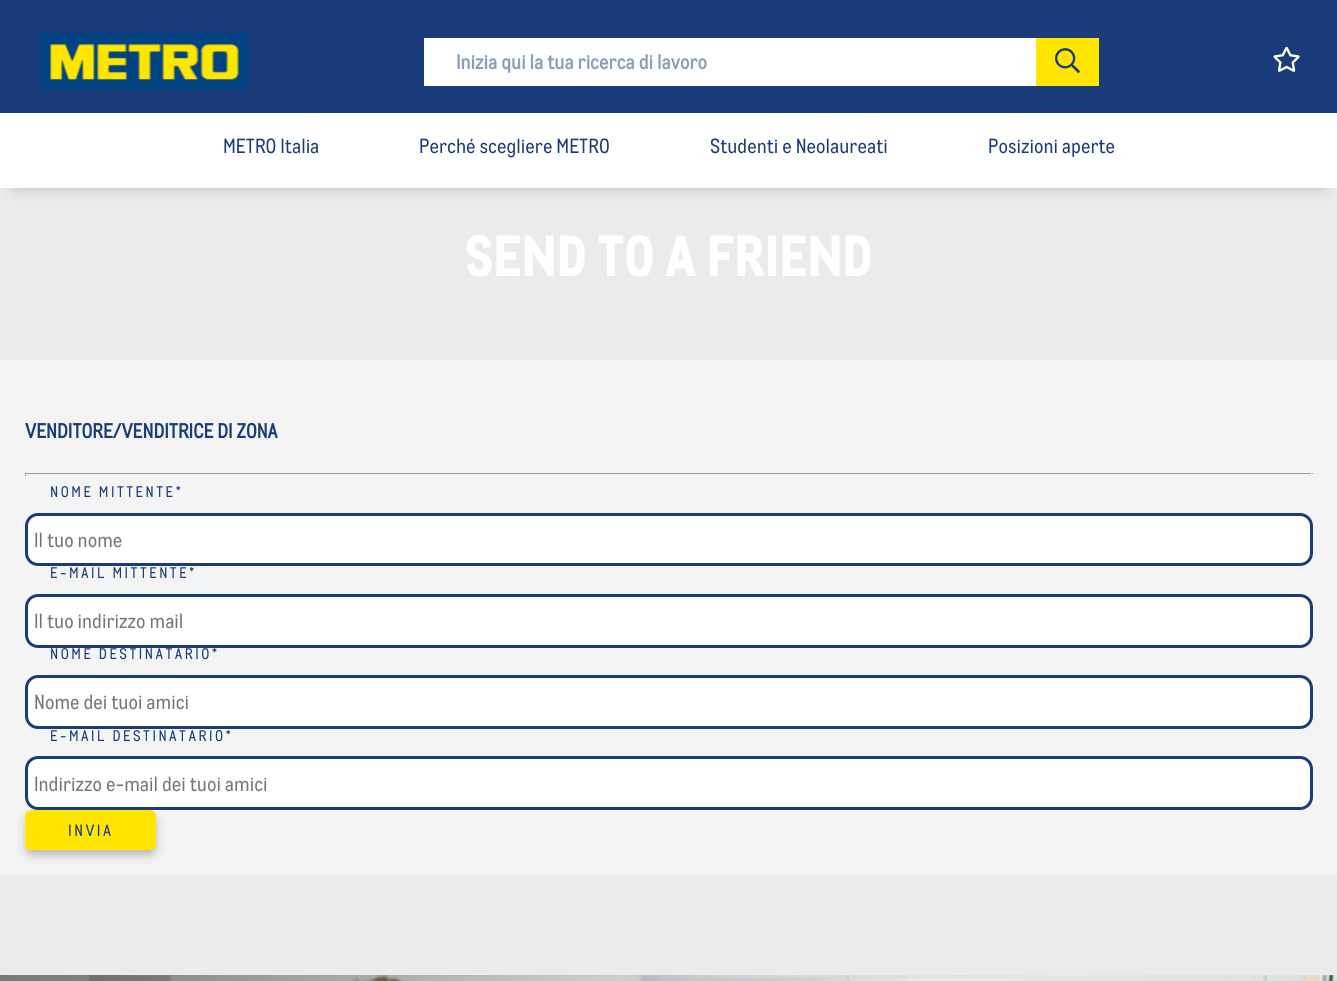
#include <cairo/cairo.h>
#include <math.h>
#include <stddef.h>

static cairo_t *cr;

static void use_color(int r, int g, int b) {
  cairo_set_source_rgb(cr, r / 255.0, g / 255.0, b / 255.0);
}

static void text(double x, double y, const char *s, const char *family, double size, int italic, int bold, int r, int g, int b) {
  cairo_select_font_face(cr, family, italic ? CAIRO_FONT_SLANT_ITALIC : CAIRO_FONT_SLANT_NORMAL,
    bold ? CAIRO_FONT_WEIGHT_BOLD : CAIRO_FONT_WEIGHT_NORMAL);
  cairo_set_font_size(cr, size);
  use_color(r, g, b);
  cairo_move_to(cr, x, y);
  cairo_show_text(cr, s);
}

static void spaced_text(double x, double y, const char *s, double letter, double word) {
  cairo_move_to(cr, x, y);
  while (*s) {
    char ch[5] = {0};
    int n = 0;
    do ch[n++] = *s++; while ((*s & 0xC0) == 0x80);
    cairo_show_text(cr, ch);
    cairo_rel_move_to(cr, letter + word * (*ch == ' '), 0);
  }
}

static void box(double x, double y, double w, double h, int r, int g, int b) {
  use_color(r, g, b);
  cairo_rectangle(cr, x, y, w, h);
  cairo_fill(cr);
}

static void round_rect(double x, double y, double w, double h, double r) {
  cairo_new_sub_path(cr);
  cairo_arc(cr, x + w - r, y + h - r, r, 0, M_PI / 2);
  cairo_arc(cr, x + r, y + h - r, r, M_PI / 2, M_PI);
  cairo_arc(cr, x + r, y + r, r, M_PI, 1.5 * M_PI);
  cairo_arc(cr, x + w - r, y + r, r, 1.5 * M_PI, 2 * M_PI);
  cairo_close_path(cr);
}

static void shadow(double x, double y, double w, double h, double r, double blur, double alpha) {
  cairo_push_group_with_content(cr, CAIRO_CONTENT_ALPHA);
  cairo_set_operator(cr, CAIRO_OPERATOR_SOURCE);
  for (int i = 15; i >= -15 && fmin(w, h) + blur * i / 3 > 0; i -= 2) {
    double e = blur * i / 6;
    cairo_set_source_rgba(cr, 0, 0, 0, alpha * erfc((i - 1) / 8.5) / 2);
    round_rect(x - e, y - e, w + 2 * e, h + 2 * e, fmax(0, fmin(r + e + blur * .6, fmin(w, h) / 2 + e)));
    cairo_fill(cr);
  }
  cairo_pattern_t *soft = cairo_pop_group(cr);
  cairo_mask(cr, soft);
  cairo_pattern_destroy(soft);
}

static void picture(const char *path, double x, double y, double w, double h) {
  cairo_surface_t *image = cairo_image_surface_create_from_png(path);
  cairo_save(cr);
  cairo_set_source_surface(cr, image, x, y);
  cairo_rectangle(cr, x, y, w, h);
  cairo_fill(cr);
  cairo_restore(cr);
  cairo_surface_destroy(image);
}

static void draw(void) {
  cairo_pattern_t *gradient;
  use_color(234, 235, 237);
  cairo_paint(cr);
  use_color(0, 0, 0);
  shadow(13, 25, 1312, 163, 0, 7, 0.18);
  box(0, 0, 1337, 113, 26, 60, 123);
  picture("img_01.png", 39, 33, 210, 57);
  box(424, 38, 612, 48, 255, 255, 255);
  box(1036, 38, 63, 48, 255, 229, 0);
  picture("img_02.png", 1055, 48, 25, 26);
  picture("img_03.png", 1273, 46, 27, 26);
  box(0, 113, 1337, 75, 255, 255, 255);
  box(0, 360, 1337, 515, 244, 244, 244);
  box(25, 473, 1288, 1, 159, 159, 159);
  box(1311, 473, 1, 3, 238, 238, 238);
  box(25, 474, 1288, 1, 238, 238, 238);
  box(25, 473, 1, 3, 159, 159, 159);
  use_color(255, 255, 255);
  round_rect(26.5, 514.5, 1285, 50, 11.5);
  cairo_fill_preserve(cr);
  use_color(26, 60, 123);
  cairo_set_line_width(cr, 3);
  cairo_stroke(cr);
  use_color(255, 255, 255);
  round_rect(26.5, 595.5, 1285, 51, 11.5);
  cairo_fill_preserve(cr);
  use_color(26, 60, 123);
  cairo_stroke(cr);
  use_color(255, 255, 255);
  round_rect(26.5, 676.5, 1285, 51, 11.5);
  cairo_fill_preserve(cr);
  use_color(26, 60, 123);
  cairo_stroke(cr);
  use_color(0, 0, 0);
  shadow(28, 818, 126, 35, 4, 6, 0.33);
  use_color(255, 255, 255);
  round_rect(26.5, 757.5, 1285, 51, 11.5);
  cairo_fill_preserve(cr);
  use_color(26, 60, 123);
  cairo_stroke(cr);
  use_color(255, 229, 0);
  round_rect(25, 810, 131, 40, 6);
  cairo_fill(cr);
  picture("img_04.png", 0, 975, 1337, 6);
  gradient = cairo_pattern_create_linear(-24, 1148, 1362, 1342);
  cairo_pattern_add_color_stop_rgba(gradient, 0, 0, 0, 0, 0.53);
  cairo_pattern_add_color_stop_rgba(gradient, 0.67, 0, 0, 0, 0);
  cairo_set_source(cr, gradient);
  cairo_pattern_destroy(gradient);
  cairo_rectangle(cr, 0, 975, 908, 6);
  cairo_fill(cr);
  text(456, 69, "Inizia qui la tua ricerca di lavoro", "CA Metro", 20, 0, 1, 141, 158, 189);
  text(223, 153, "METRO Italia", "CA Metro", 20, 0, 0, 26, 60, 123);
  text(419, 153, "Perché scegliere METRO", "CA Metro", 20, 0, 0, 26, 60, 123);
  text(710, 153, "Studenti e Neolaureati", "CA Metro", 20, 0, 0, 26, 60, 123);
  text(988, 153, "Posizioni aperte", "CA Metro", 20, 0, 0, 26, 60, 123);
  text(465, 276, "SEND TO A FRIEND", "CA Metro ExtraBold", 56.25, 0, 0, 255, 255, 255);
  text(25, 438, "VENDITORE/VENDITRICE DI ZONA", "CA Metro", 20, 0, 1, 26, 60, 123);
  cairo_select_font_face(cr, "CA Metro", CAIRO_FONT_SLANT_NORMAL, CAIRO_FONT_WEIGHT_NORMAL);
  cairo_set_font_size(cr, 15);
  spaced_text(50, 497, "NOME MITTENTE*", 2.5, 0);
  text(34, 547, "Il tuo nome", "CA Metro", 20, 0, 0, 117, 117, 117);
  cairo_set_font_size(cr, 15);
  use_color(26, 60, 123);
  spaced_text(50, 578, "E-MAIL MITTENTE*", 2.5, 0);
  text(34, 628, "Il tuo indirizzo mail", "CA Metro", 20, 0, 0, 117, 117, 117);
  cairo_set_font_size(cr, 15);
  use_color(26, 60, 123);
  spaced_text(50, 659, "NOME DESTINATARIO*", 2.5, 0);
  text(34, 709, "Nome dei tuoi amici", "CA Metro", 20, 0, 0, 117, 117, 117);
  cairo_set_font_size(cr, 15);
  use_color(26, 60, 123);
  spaced_text(50, 741, "E-MAIL DESTINATARIO*", 2.5, 0);
  text(34, 791, "Indirizzo e-mail dei tuoi amici", "CA Metro", 20, 0, 0, 117, 117, 117);
  cairo_set_font_size(cr, 16);
  use_color(26, 60, 123);
  spaced_text(68, 836, "INVIA", 2.5, 0);
}

int main(void) {
  cairo_surface_t *surface = cairo_image_surface_create(CAIRO_FORMAT_RGB24, 1337, 981);
  cr = cairo_create(surface);
  cairo_font_options_t *options = cairo_font_options_create();
  cairo_font_options_set_hint_metrics(options, CAIRO_HINT_METRICS_OFF);
  cairo_font_options_set_hint_style(options, CAIRO_HINT_STYLE_NONE);
  cairo_set_font_options(cr, options);
  cairo_set_miter_limit(cr, 4);
  draw();
  cairo_surface_write_to_png(surface, "out.png");
  cairo_font_options_destroy(options);
  cairo_destroy(cr);
  cairo_surface_destroy(surface);
  return 0;
}
